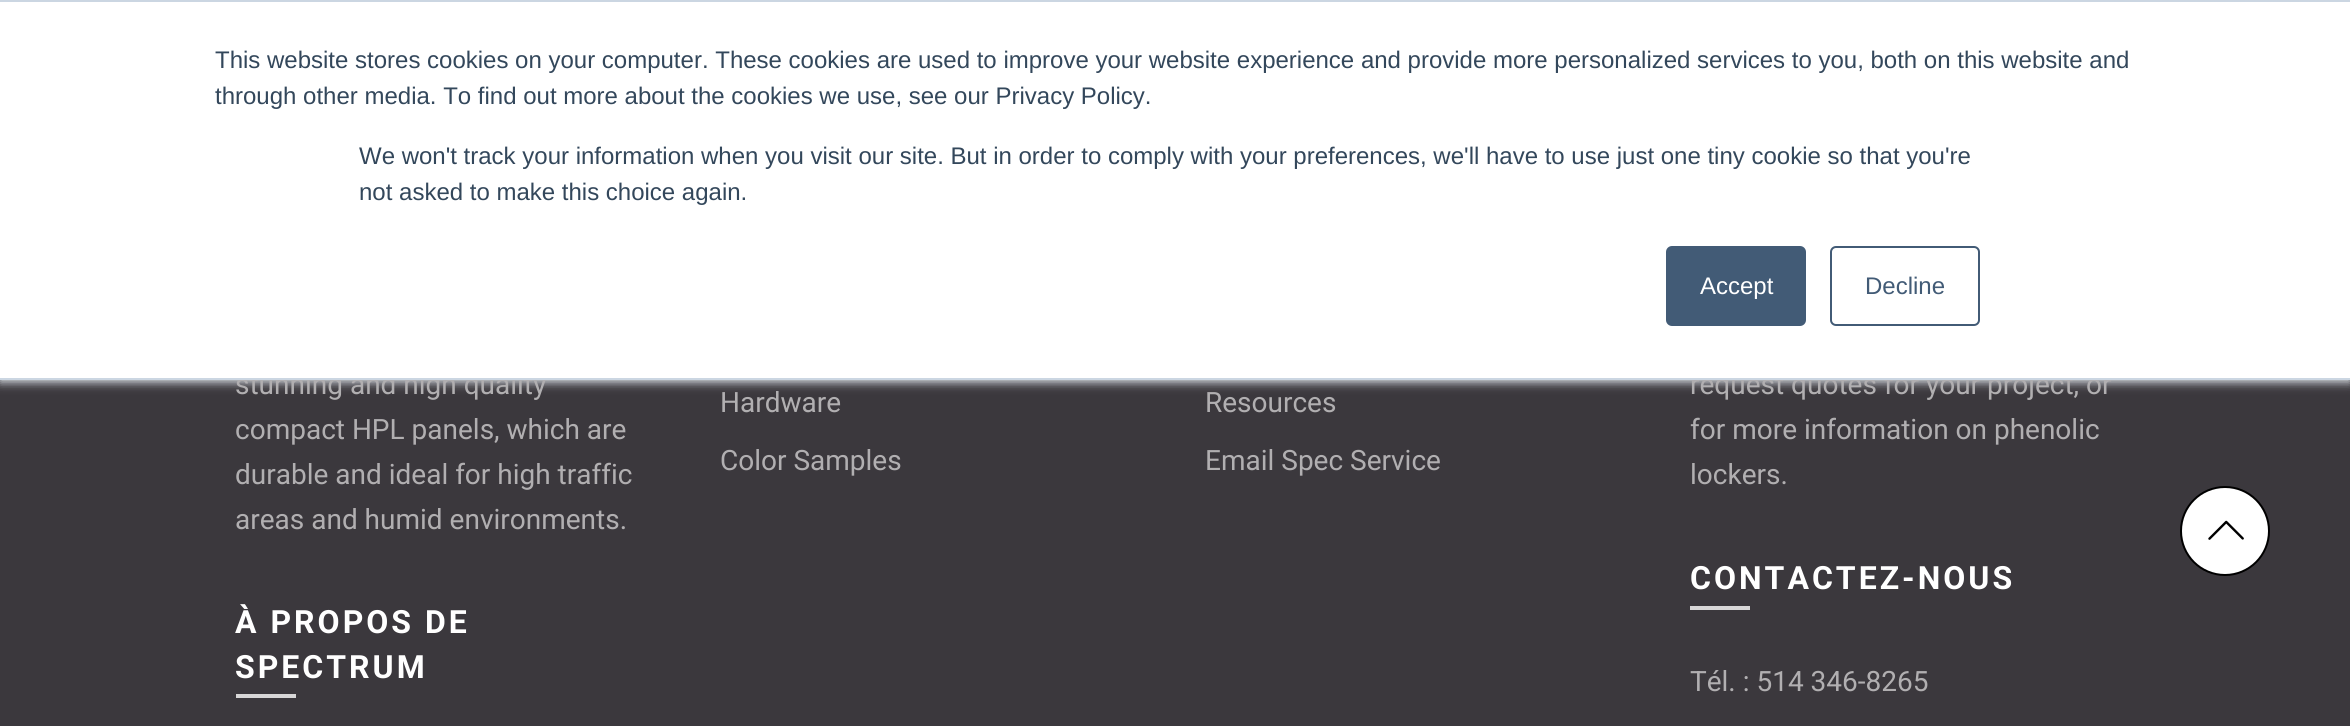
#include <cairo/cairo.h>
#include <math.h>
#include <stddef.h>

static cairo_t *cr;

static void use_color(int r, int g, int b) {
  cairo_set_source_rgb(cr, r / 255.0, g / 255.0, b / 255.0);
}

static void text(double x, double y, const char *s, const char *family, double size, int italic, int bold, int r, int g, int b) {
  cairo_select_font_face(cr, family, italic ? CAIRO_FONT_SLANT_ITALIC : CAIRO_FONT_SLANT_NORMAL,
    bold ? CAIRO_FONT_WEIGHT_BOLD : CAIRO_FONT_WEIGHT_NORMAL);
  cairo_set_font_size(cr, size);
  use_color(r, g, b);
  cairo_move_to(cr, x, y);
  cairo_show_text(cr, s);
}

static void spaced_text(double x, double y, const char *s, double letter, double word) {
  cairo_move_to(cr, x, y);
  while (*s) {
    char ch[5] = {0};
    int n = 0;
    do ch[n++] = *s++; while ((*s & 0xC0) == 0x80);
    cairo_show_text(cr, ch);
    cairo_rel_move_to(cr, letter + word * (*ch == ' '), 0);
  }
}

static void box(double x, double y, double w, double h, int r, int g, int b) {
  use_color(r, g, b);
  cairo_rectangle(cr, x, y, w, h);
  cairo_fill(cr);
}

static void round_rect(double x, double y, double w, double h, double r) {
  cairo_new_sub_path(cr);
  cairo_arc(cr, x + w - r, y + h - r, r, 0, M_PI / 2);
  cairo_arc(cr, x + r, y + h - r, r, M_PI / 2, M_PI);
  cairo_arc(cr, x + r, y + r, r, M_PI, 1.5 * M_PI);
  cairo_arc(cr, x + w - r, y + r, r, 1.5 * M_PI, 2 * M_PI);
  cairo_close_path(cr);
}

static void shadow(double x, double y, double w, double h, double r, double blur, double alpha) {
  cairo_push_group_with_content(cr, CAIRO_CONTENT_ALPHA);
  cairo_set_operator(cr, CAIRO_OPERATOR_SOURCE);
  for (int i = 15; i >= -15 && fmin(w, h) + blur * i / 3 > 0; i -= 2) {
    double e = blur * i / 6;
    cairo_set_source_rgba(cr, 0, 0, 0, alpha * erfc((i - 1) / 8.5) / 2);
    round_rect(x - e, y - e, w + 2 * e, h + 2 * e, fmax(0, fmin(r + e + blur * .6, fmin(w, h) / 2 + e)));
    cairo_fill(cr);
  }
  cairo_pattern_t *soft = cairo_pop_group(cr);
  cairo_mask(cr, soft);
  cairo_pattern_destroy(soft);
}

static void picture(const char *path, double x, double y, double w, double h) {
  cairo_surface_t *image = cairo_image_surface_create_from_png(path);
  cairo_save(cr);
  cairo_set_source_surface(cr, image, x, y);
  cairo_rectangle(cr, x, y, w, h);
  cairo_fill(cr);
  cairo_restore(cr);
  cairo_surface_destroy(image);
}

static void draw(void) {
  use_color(59, 56, 61);
  cairo_paint(cr);
  use_color(234, 240, 246);
  shadow(0, 2, 2350, 380, 0, 5, 1);
  box(0, 0, 2350, 2, 203, 214, 226);
  box(236, 694, 60, 4, 216, 215, 216);
  box(1690, 606, 60, 4, 216, 215, 216);
  use_color(255, 255, 255);
  cairo_arc(cr, 2225, 531, 44, 0, 2 * M_PI);
  cairo_fill_preserve(cr);
  use_color(0, 0, 0);
  cairo_stroke(cr);
  picture("img_01.png", 2208, 520, 36, 20);
  text(235, 394, "stunning and high quality", "Roboto", 28, 0, 0, 177, 175, 177);
  text(235, 439, "compact HPL panels, which are", "Roboto", 28, 0, 0, 177, 175, 177);
  text(235, 484, "durable and ideal for high traffic", "Roboto", 28, 0, 0, 177, 175, 177);
  text(235, 529, "areas and humid environments.", "Roboto", 28, 0, 0, 177, 175, 177);
  cairo_select_font_face(cr, "Roboto", CAIRO_FONT_SLANT_NORMAL, CAIRO_FONT_WEIGHT_BOLD);
  cairo_set_font_size(cr, 32);
  use_color(255, 255, 255);
  spaced_text(235, 633, "À PROPOS DE", 3, 0);
  spaced_text(235, 678, "SPECTRUM", 3, 0);
  text(720, 412, "Hardware", "Roboto", 28, 0, 0, 177, 175, 177);
  text(720, 470, "Color Samples", "Roboto", 28, 0, 0, 177, 175, 177);
  text(1205, 412, "Resources", "Roboto", 28, 0, 0, 177, 175, 177);
  text(1205, 470, "Email Spec Service", "Roboto", 28, 0, 0, 177, 175, 177);
  text(1690, 394, "request quotes for your project, or", "Roboto", 28, 0, 0, 177, 175, 177);
  box(0, 2, 2350, 376, 255, 255, 255);
  round_rect(1831, 247, 148, 78, 5);
  use_color(66, 91, 118);
  cairo_stroke(cr);
  text(1865, 294, "Decline", "Liberation Sans", 24, 0, 0, 66, 91, 118);
  round_rect(1667, 247, 138, 78, 5);
  cairo_fill_preserve(cr);
  cairo_stroke(cr);
  text(1700, 294, "Accept", "Liberation Sans", 24, 0, 0, 255, 255, 255);
  text(359, 200, "not asked to make this choice again.", "Liberation Sans", 24, 0, 0, 51, 71, 91);
  text(359, 164, "We won't track your information when you visit our site. But in order to comply with your preferences, we'll have to use just one tiny cookie so that you're", "Liberation Sans", 24, 0, 0, 51, 71, 91);
  text(215, 104, "through other media. To find out more about the cookies we use, see our Privacy Policy.", "Liberation Sans", 24, 0, 0, 51, 71, 91);
  text(215, 68, "This website stores cookies on your computer. These cookies are used to improve your website experience and provide more personalized services to you, both on this website and", "Liberation Sans", 24, 0, 0, 51, 71, 91);
  box(0, 378, 2350, 2, 203, 214, 226);
  text(1690, 439, "for more information on phenolic", "Roboto", 28, 0, 0, 177, 175, 177);
  text(1690, 484, "lockers.", "Roboto", 28, 0, 0, 177, 175, 177);
  cairo_select_font_face(cr, "Roboto", CAIRO_FONT_SLANT_NORMAL, CAIRO_FONT_WEIGHT_BOLD);
  cairo_set_font_size(cr, 32);
  use_color(255, 255, 255);
  spaced_text(1690, 589, "CONTACTEZ-NOUS", 3, 0);
  text(1690, 691, "Tél. : 514 346-8265", "Roboto", 28, 0, 0, 177, 175, 177);
}

int main(void) {
  cairo_surface_t *surface = cairo_image_surface_create(CAIRO_FORMAT_RGB24, 2350, 726);
  cr = cairo_create(surface);
  cairo_font_options_t *options = cairo_font_options_create();
  cairo_font_options_set_hint_metrics(options, CAIRO_HINT_METRICS_OFF);
  cairo_font_options_set_hint_style(options, CAIRO_HINT_STYLE_NONE);
  cairo_set_font_options(cr, options);
  cairo_set_miter_limit(cr, 4);
  draw();
  cairo_surface_write_to_png(surface, "out.png");
  cairo_font_options_destroy(options);
  cairo_destroy(cr);
  cairo_surface_destroy(surface);
  return 0;
}
